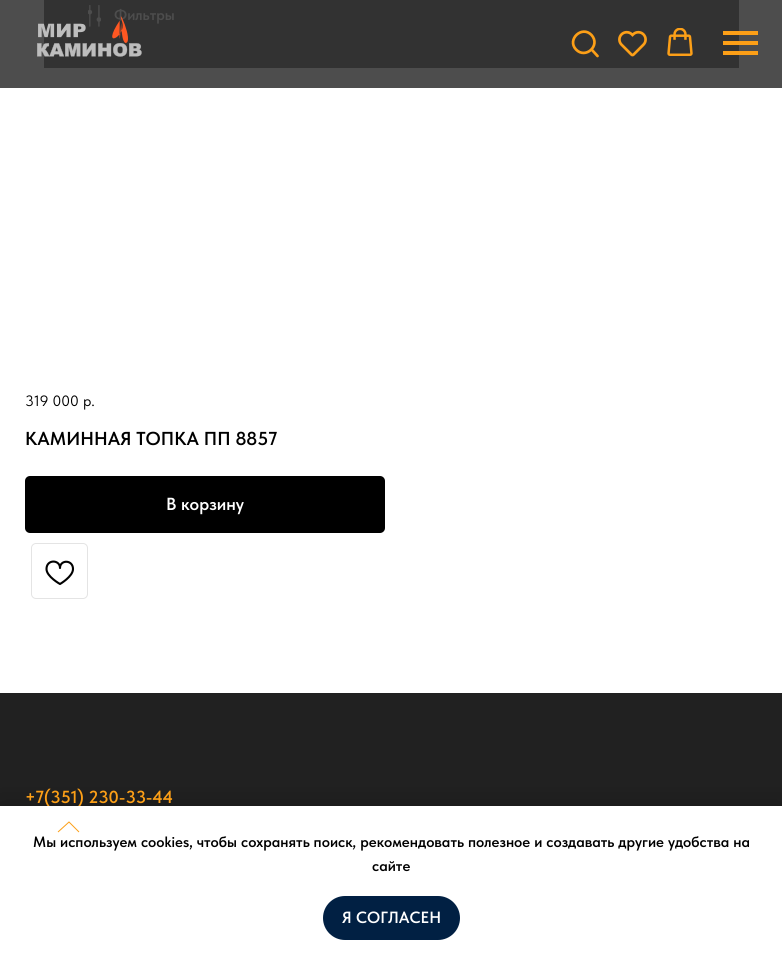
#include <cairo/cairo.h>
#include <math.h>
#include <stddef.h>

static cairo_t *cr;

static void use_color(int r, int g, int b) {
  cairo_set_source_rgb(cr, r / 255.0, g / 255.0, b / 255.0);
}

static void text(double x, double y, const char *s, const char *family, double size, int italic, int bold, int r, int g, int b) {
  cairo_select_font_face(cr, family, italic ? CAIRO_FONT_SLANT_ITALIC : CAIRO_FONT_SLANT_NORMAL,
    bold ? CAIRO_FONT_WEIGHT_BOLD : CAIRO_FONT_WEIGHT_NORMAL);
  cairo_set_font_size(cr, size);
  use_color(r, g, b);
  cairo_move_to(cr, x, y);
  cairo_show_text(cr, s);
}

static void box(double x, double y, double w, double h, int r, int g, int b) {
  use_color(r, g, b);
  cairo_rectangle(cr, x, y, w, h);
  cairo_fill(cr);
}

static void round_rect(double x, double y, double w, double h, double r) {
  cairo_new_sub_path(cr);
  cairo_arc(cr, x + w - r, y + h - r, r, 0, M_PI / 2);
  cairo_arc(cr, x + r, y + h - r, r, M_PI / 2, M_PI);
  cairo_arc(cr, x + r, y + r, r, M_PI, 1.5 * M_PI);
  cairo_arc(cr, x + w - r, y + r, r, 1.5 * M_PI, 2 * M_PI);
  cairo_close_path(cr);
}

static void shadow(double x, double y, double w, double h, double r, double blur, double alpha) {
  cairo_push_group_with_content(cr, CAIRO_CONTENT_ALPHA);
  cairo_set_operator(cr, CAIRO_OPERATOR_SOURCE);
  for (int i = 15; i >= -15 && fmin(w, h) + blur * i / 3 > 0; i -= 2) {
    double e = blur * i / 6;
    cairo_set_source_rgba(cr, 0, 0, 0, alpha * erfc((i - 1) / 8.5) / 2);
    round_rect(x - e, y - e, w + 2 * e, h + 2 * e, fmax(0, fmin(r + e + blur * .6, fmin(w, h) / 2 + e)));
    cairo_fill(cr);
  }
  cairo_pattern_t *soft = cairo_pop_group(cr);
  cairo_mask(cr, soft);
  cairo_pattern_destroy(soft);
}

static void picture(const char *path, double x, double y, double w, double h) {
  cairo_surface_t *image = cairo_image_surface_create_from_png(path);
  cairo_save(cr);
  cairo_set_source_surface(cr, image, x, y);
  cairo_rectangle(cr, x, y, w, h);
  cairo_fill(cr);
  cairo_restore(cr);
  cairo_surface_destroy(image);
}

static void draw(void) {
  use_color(255, 255, 255);
  cairo_paint(cr);
  box(0, 0, 782, 88, 77, 77, 77);
  box(44, 0, 695, 68, 50, 50, 50);
  picture("img_01.png", 88, 5, 13, 22);
  use_color(0, 0, 0);
  round_rect(25, 476, 360, 57, 5);
  cairo_fill(cr);
  round_rect(31.5, 543.5, 56, 55, 4.5);
  use_color(228, 228, 228);
  cairo_set_line_width(cr, 1);
  cairo_stroke(cr);
  cairo_new_path(cr);
  cairo_move_to(cr, 73, 569);
  cairo_curve_to(cr, 73, 576.5, 60, 584, 60, 584);
  cairo_curve_to(cr, 60, 584, 46.5, 576.5, 46.5, 569);
  cairo_curve_to(cr, 46.5, 559, 60, 559.5, 60, 568);
  cairo_curve_to(cr, 60, 559.5, 73, 559.5, 73, 569);
  cairo_close_path(cr);
  use_color(0, 0, 0);
  cairo_set_line_width(cr, 2.1);
  cairo_set_line_join(cr, CAIRO_LINE_JOIN_ROUND);
  cairo_stroke(cr);
  cairo_new_path(cr);
  cairo_move_to(cr, 591.5, 35);
  cairo_curve_to(cr, 601, 45.5, 585.5, 59.5, 576, 49.5);
  cairo_curve_to(cr, 566.5, 39.5, 582, 25, 591.5, 35);
  cairo_close_path(cr);
  use_color(252, 159, 23);
  cairo_set_line_width(cr, 2.7);
  cairo_set_line_join(cr, CAIRO_LINE_JOIN_MITER);
  cairo_stroke(cr);
  cairo_new_path(cr);
  cairo_move_to(cr, 592.5, 50.5);
  cairo_line_to(cr, 597.5, 56);
  cairo_set_line_cap(cr, CAIRO_LINE_CAP_ROUND);
  cairo_stroke(cr);
  picture("img_03.png", 618, 30, 29, 27);
  picture("img_04.png", 667, 28, 26, 28);
  box(723, 31, 35, 4, 252, 159, 23);
  box(723, 41, 35, 4, 252, 159, 23);
  box(723, 51, 35, 4, 252, 159, 23);
  box(0, 693, 782, 113, 33, 33, 33);
  use_color(0, 0, 0);
  shadow(0, 806, 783, 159, 0, 12.5, 0.3);
  text(114, 20, "Фильтры", "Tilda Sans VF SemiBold", 15, 0, 0, 77, 77, 77);
  text(25, 406, "319 000", "Tilda Sans VF", 15, 0, 0, 0, 0, 0);
  text(83, 406, "р.", "Tilda Sans VF", 15, 0, 0, 0, 0, 0);
  text(25, 445, "КАМИННАЯ ТОПКА ПП 8857", "Tilda Sans VF SemiBold", 18.75, 0, 0, 0, 0, 0);
  text(166, 510, "В корзину", "Tilda Sans VF SemiBold", 17.5, 0, 0, 255, 255, 255);
  picture("img_02.png", 37, 16, 105, 41);
  text(25, 803, "+7(351) 230-33-44", "Tilda Sans VF SemiBold", 17.5, 0, 0, 252, 159, 23);
  box(0, 806, 782, 158, 255, 255, 255);
  cairo_new_path(cr);
  cairo_move_to(cr, 58, 832);
  cairo_line_to(cr, 69, 822);
  cairo_line_to(cr, 79, 832);
  use_color(252, 159, 23);
  cairo_set_line_width(cr, 1);
  cairo_set_line_cap(cr, CAIRO_LINE_CAP_BUTT);
  cairo_stroke(cr);
  text(33, 847, "Мы используем cookies, чтобы сохранять поиск, рекомендовать полезное и создавать другие удобства на", "Tilda Sans VF SemiBold", 15, 0, 0, 0, 0, 0);
  text(372, 871, "сайте", "Tilda Sans VF SemiBold", 15, 0, 0, 0, 0, 0);
  use_color(1, 32, 67);
  round_rect(323, 896, 137, 44, 22);
  cairo_fill(cr);
  text(342, 923, "Я СОГЛАСЕН", "Tilda Sans VF SemiBold", 16.25, 0, 0, 255, 255, 255);
}

int main(void) {
  cairo_surface_t *surface = cairo_image_surface_create(CAIRO_FORMAT_RGB24, 782, 964);
  cr = cairo_create(surface);
  cairo_font_options_t *options = cairo_font_options_create();
  cairo_font_options_set_hint_metrics(options, CAIRO_HINT_METRICS_OFF);
  cairo_font_options_set_hint_style(options, CAIRO_HINT_STYLE_NONE);
  cairo_set_font_options(cr, options);
  cairo_set_miter_limit(cr, 4);
  draw();
  cairo_surface_write_to_png(surface, "out.png");
  cairo_font_options_destroy(options);
  cairo_destroy(cr);
  cairo_surface_destroy(surface);
  return 0;
}
